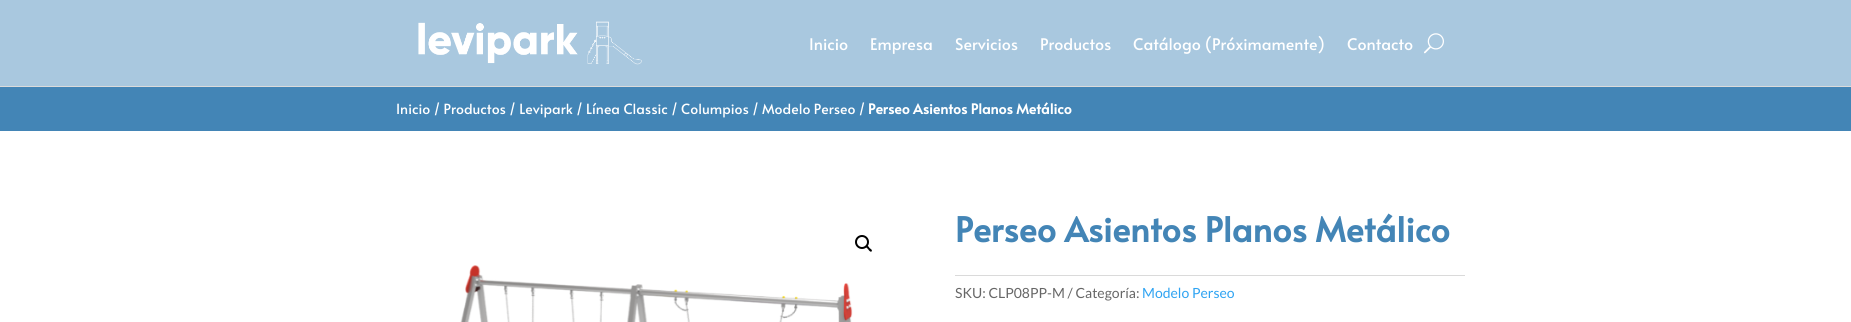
#include <cairo/cairo.h>
#include <math.h>
#include <stddef.h>

static cairo_t *cr;

static void use_color(int r, int g, int b) {
  cairo_set_source_rgb(cr, r / 255.0, g / 255.0, b / 255.0);
}

static void text(double x, double y, const char *s, const char *family, double size, int italic, int bold, int r, int g, int b) {
  cairo_select_font_face(cr, family, italic ? CAIRO_FONT_SLANT_ITALIC : CAIRO_FONT_SLANT_NORMAL,
    bold ? CAIRO_FONT_WEIGHT_BOLD : CAIRO_FONT_WEIGHT_NORMAL);
  cairo_set_font_size(cr, size);
  use_color(r, g, b);
  cairo_move_to(cr, x, y);
  cairo_show_text(cr, s);
}

static void box(double x, double y, double w, double h, int r, int g, int b) {
  use_color(r, g, b);
  cairo_rectangle(cr, x, y, w, h);
  cairo_fill(cr);
}

static void picture(const char *path, double x, double y, double w, double h) {
  cairo_surface_t *image = cairo_image_surface_create_from_png(path);
  cairo_save(cr);
  cairo_set_source_surface(cr, image, x, y);
  cairo_rectangle(cr, x, y, w, h);
  cairo_fill(cr);
  cairo_restore(cr);
  cairo_surface_destroy(image);
}

static void draw(void) {
  use_color(255, 255, 255);
  cairo_paint(cr);
  box(0, 0, 1851, 86, 169, 200, 223);
  box(0, 86, 1851, 1, 219, 219, 219);
  picture("img_01.png", 418, 21, 224, 44);
  picture("img_02.png", 1424, 33, 20, 21);
  box(0, 87, 1851, 44, 67, 133, 182);
  cairo_arc(cr, 862, 242, 6, 0, 2 * M_PI);
  use_color(0, 0, 0);
  cairo_stroke(cr);
  cairo_new_path(cr);
  cairo_move_to(cr, 866, 245.5);
  cairo_curve_to(cr, 867, 244.5, 869, 247, 869.5, 248);
  cairo_curve_to(cr, 870, 248.5, 873, 250, 871.5, 251.5);
  cairo_curve_to(cr, 870.5, 252.5, 868.5, 250, 868, 249);
  cairo_curve_to(cr, 867.5, 248.5, 865, 247, 866, 245.5);
  cairo_close_path(cr);
  cairo_fill(cr);
  picture("img_03.png", 460, 265, 393, 57);
  box(955, 275, 510, 1, 218, 218, 218);
  text(809, 50, "Inicio", "Alata", 16, 0, 0, 255, 255, 255);
  text(870, 50, "Empresa", "Alata", 16, 0, 0, 255, 255, 255);
  text(955, 50, "Servicios", "Alata", 16, 0, 0, 255, 255, 255);
  text(1040, 50, "Productos", "Alata", 16, 0, 0, 255, 255, 255);
  text(1133, 50, "Catálogo (Próximamente)", "Alata", 16, 0, 0, 255, 255, 255);
  text(1347, 50, "Contacto", "Alata", 16, 0, 0, 255, 255, 255);
  text(396, 114, "Inicio / Productos / Levipark / Línea Classic / Columpios / Modelo Perseo /", "Alata", 14, 0, 0, 255, 255, 255);
  text(868, 114, "Perseo Asientos Planos Metálico", "Alata", 14, 0, 1, 255, 255, 255);
  text(955, 242, "Perseo Asientos Planos Metálico", "Alata", 34, 0, 1, 67, 133, 182);
  text(955, 298, "SKU: CLP08PP-M / Categoría:", "Lato", 14, 0, 0, 102, 102, 102);
  text(1142, 298, "Modelo Perseo", "Lato", 14, 0, 0, 46, 163, 242);
}

int main(void) {
  cairo_surface_t *surface = cairo_image_surface_create(CAIRO_FORMAT_RGB24, 1851, 322);
  cr = cairo_create(surface);
  cairo_font_options_t *options = cairo_font_options_create();
  cairo_font_options_set_hint_metrics(options, CAIRO_HINT_METRICS_OFF);
  cairo_font_options_set_hint_style(options, CAIRO_HINT_STYLE_NONE);
  cairo_set_font_options(cr, options);
  cairo_set_miter_limit(cr, 4);
  draw();
  cairo_surface_write_to_png(surface, "out.png");
  cairo_font_options_destroy(options);
  cairo_destroy(cr);
  cairo_surface_destroy(surface);
  return 0;
}
